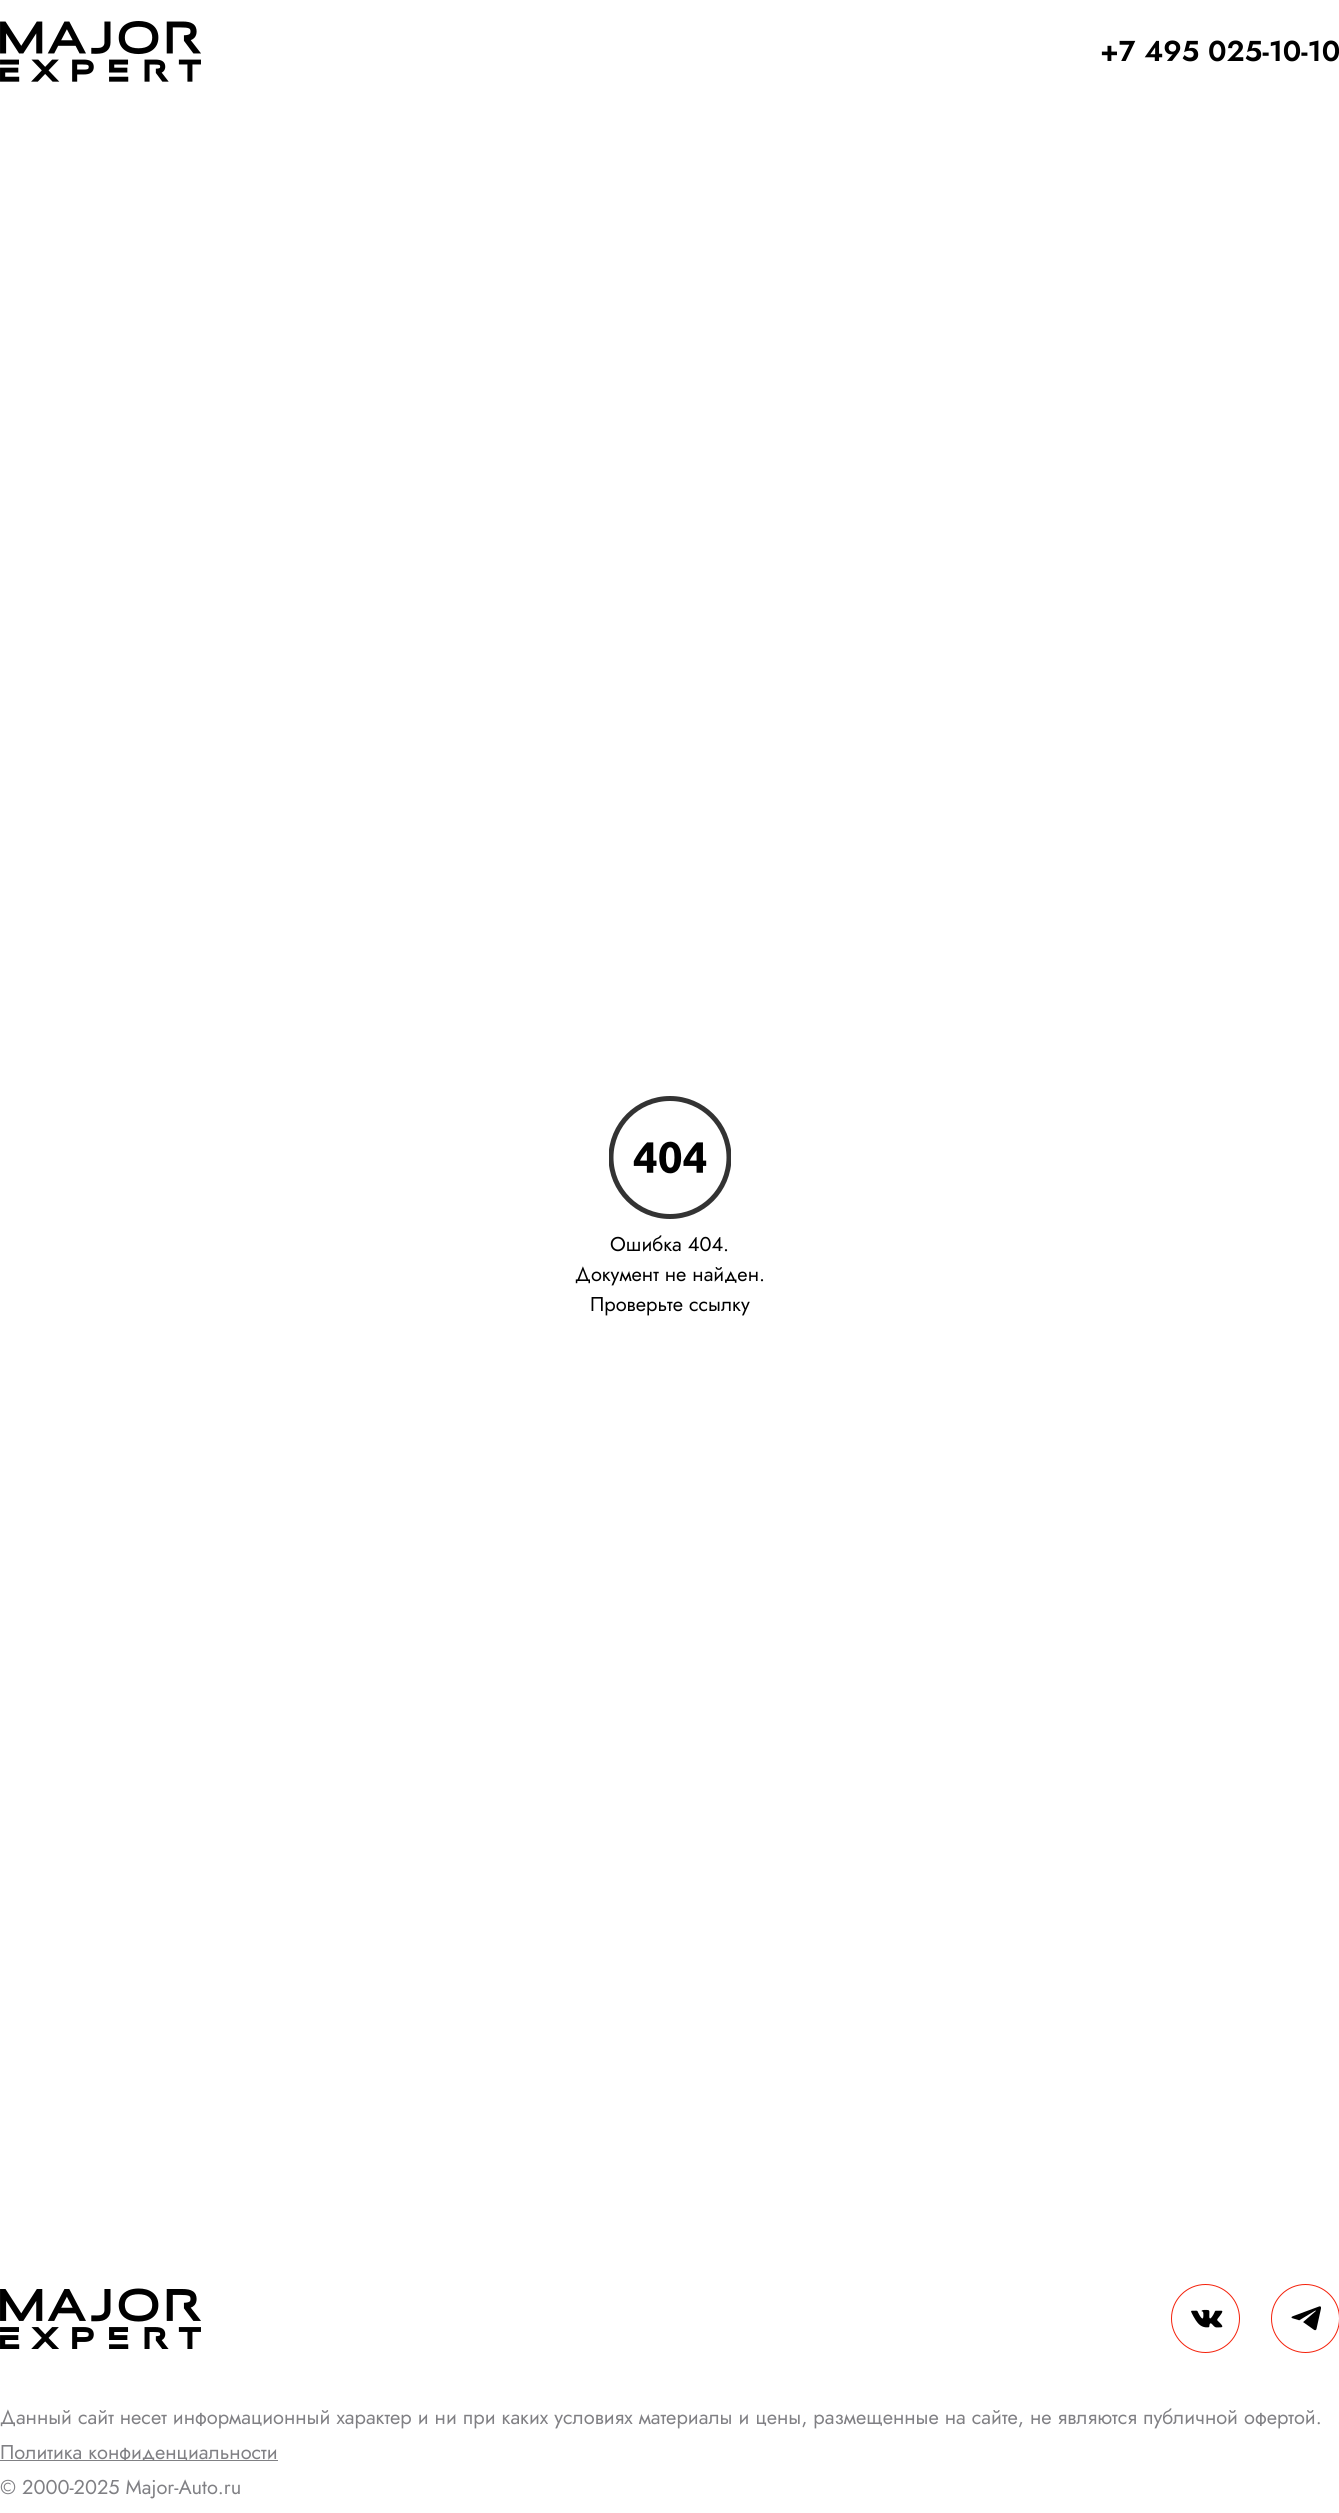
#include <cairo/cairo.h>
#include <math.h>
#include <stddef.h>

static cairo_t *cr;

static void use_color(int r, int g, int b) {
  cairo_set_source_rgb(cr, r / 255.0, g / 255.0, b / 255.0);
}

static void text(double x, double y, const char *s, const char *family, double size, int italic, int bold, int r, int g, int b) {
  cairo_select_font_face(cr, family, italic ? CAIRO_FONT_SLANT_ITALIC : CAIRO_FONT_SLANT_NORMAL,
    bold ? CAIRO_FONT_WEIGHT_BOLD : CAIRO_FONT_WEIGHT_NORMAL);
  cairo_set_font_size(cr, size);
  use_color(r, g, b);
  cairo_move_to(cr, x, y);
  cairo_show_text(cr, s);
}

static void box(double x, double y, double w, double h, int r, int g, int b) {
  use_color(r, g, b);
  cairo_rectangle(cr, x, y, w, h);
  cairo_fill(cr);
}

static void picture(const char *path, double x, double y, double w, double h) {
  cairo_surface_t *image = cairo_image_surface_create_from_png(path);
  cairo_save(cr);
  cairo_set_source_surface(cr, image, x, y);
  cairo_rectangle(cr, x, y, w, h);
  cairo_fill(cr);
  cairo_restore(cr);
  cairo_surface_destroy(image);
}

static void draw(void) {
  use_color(255, 255, 255);
  cairo_paint(cr);
  picture("img_01.png", 0, 21, 201, 61);
  picture("img_02.png", 609, 1096, 122, 123);
  picture("img_03.png", 0, 2288, 201, 61);
  cairo_arc(cr, 1205.5, 2318.5, 34, 0, 2 * M_PI);
  use_color(244, 33, 11);
  cairo_set_line_width(cr, 1);
  cairo_stroke(cr);
  picture("img_04.png", 1191, 2309, 32, 19);
  cairo_arc(cr, 1305.5, 2318.5, 34, 0, 2 * M_PI);
  cairo_stroke(cr);
  picture("img_05.png", 1291, 2306, 30, 25);
  box(0, 2460, 278, 1, 128, 128, 132);
  text(1100, 61, "+7 495 025-10-10", "Jost SemiBold", 28.75, 0, 0, 0, 0, 0);
  text(610, 1251, "Ошибка 404.", "Jost", 20, 0, 0, 0, 0, 0);
  text(575, 1281, "Документ не найден.", "Jost", 20, 0, 0, 0, 0, 0);
  text(590, 1311, "Проверьте ссылку", "Jost", 20, 0, 0, 0, 0, 0);
  text(0, 2424, "Данный сайт несет информационный характер и ни при каких условиях материалы и цены, размещенные на сайте, не являются публичной офертой.", "Jost", 20, 0, 0, 128, 128, 132);
  text(0, 2459, "Политика конфиденциальности", "Jost", 20, 0, 0, 128, 128, 132);
  text(0, 2494, "© 2000-2025 Major-Auto.ru", "Jost", 20, 0, 0, 128, 128, 132);
}

int main(void) {
  cairo_surface_t *surface = cairo_image_surface_create(CAIRO_FORMAT_RGB24, 1339, 2513);
  cr = cairo_create(surface);
  cairo_font_options_t *options = cairo_font_options_create();
  cairo_font_options_set_hint_metrics(options, CAIRO_HINT_METRICS_OFF);
  cairo_font_options_set_hint_style(options, CAIRO_HINT_STYLE_NONE);
  cairo_set_font_options(cr, options);
  cairo_set_miter_limit(cr, 4);
  draw();
  cairo_surface_write_to_png(surface, "out.png");
  cairo_font_options_destroy(options);
  cairo_destroy(cr);
  cairo_surface_destroy(surface);
  return 0;
}
